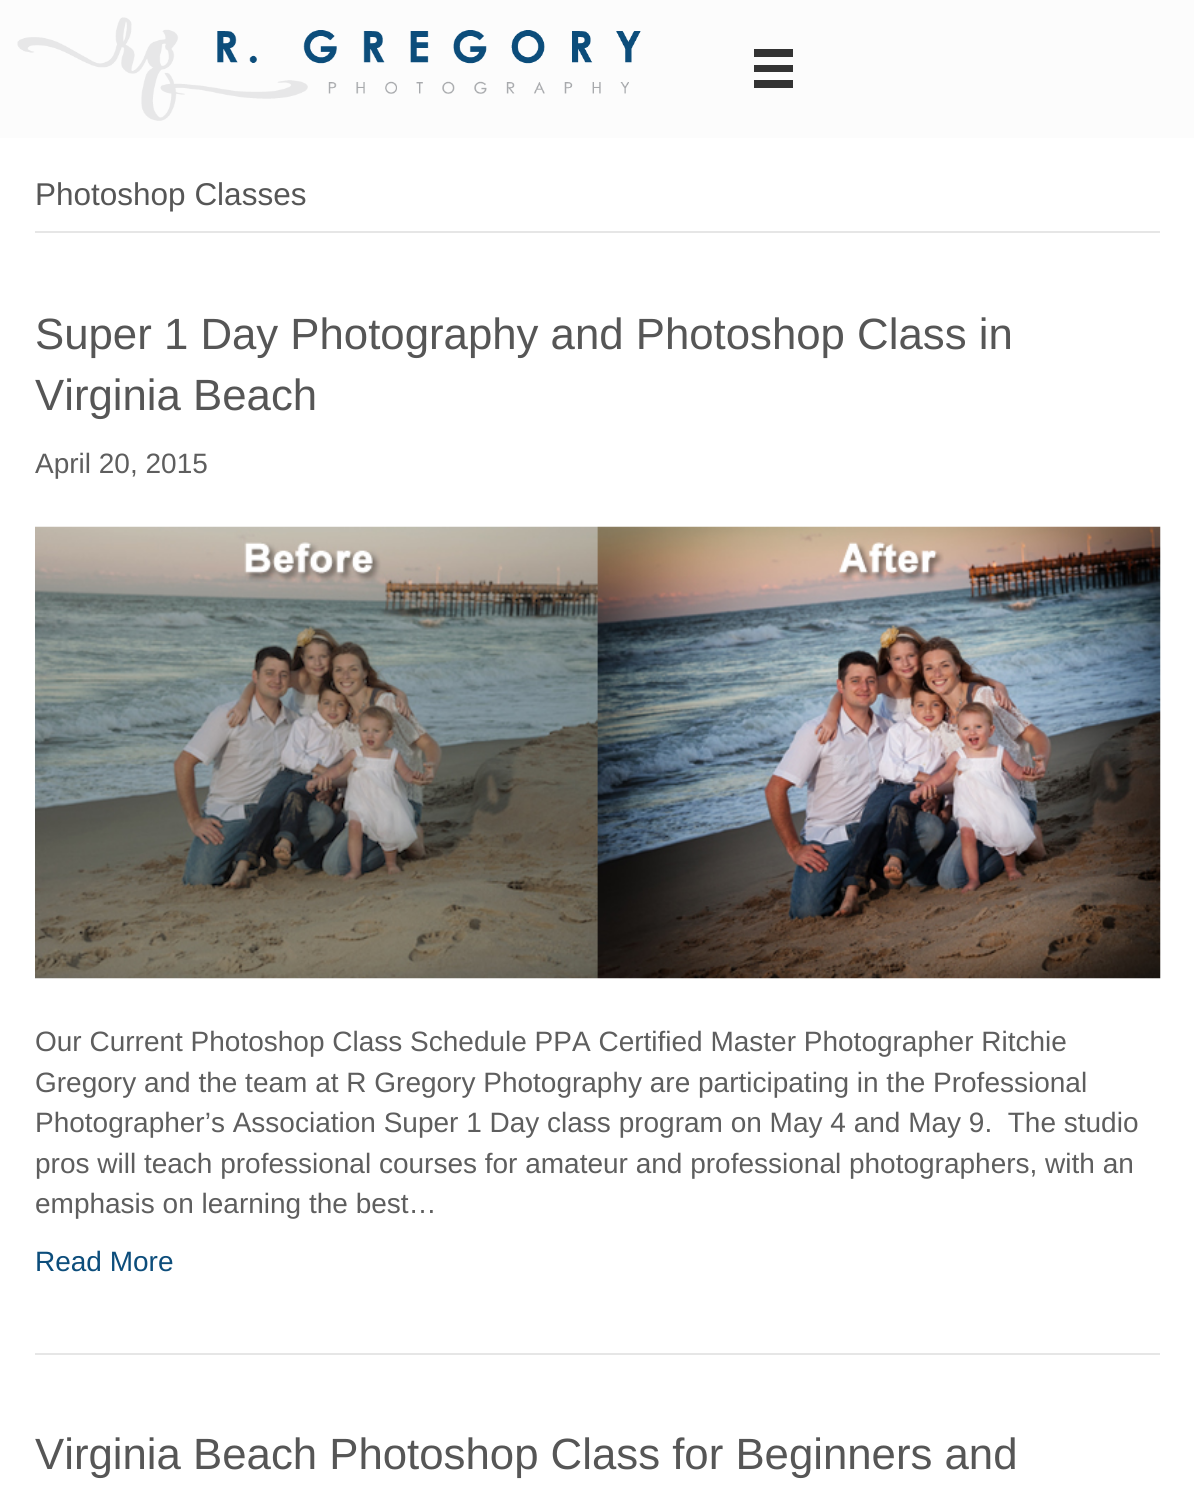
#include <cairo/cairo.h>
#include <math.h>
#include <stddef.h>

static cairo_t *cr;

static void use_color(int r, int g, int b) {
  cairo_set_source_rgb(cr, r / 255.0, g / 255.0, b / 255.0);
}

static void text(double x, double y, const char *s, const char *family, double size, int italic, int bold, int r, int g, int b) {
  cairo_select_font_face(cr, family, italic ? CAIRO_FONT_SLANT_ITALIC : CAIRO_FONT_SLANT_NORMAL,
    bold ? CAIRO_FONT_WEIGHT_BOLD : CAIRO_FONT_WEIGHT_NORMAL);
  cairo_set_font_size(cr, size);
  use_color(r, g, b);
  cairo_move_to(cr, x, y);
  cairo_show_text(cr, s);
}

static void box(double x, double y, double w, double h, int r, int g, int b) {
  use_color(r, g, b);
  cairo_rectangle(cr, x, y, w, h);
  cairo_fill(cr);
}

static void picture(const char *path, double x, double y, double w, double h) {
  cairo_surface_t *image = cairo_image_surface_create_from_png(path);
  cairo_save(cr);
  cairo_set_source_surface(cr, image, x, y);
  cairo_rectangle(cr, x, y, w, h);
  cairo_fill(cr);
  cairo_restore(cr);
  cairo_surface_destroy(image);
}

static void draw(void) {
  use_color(252, 252, 252);
  cairo_paint(cr);
  picture("img_01.png", 17, 17, 624, 104);
  box(754, 49, 39, 8, 51, 51, 51);
  box(754, 65, 39, 7, 51, 51, 51);
  box(754, 80, 39, 8, 51, 51, 51);
  box(0, 138, 1194, 1359, 255, 255, 255);
  box(35, 231, 1125, 2, 230, 230, 230);
  box(35, 1353, 1125, 2, 230, 230, 230);
  picture("img_02.png", 35, 526, 1126, 453);
  text(35, 205, "Photoshop Classes", "Liberation Sans", 31.5, 0, 0, 86, 86, 86);
  text(35, 349, "Super 1 Day Photography and Photoshop Class in", "Liberation Sans", 43.75, 0, 0, 86, 86, 86);
  text(35, 410, "Virginia Beach", "Liberation Sans", 43.75, 0, 0, 86, 86, 86);
  text(35, 473, "April 20, 2015", "Liberation Sans", 28, 0, 0, 94, 94, 94);
  text(35, 1051, "Our Current Photoshop Class Schedule PPA Certified Master Photographer Ritchie", "Liberation Sans", 28, 0, 0, 94, 94, 94);
  text(35, 1092, "Gregory and the team at R Gregory Photography are participating in the Professional", "Liberation Sans", 28, 0, 0, 94, 94, 94);
  text(35, 1132, "Photographer’s Association Super 1 Day class program on May 4 and May 9.  The studio", "Liberation Sans", 28, 0, 0, 94, 94, 94);
  text(35, 1173, "pros will teach professional courses for amateur and professional photographers, with an", "Liberation Sans", 28, 0, 0, 94, 94, 94);
  text(35, 1213, "emphasis on learning the best…", "Liberation Sans", 28, 0, 0, 94, 94, 94);
  text(35, 1271, "Read More", "Liberation Sans", 28, 0, 0, 12, 77, 123);
  text(35, 1469, "Virginia Beach Photoshop Class for Beginners and", "Liberation Sans", 43.75, 0, 0, 86, 86, 86);
}

int main(void) {
  cairo_surface_t *surface = cairo_image_surface_create(CAIRO_FORMAT_RGB24, 1194, 1497);
  cr = cairo_create(surface);
  cairo_font_options_t *options = cairo_font_options_create();
  cairo_font_options_set_hint_metrics(options, CAIRO_HINT_METRICS_OFF);
  cairo_font_options_set_hint_style(options, CAIRO_HINT_STYLE_NONE);
  cairo_set_font_options(cr, options);
  cairo_set_miter_limit(cr, 4);
  draw();
  cairo_surface_write_to_png(surface, "out.png");
  cairo_font_options_destroy(options);
  cairo_destroy(cr);
  cairo_surface_destroy(surface);
  return 0;
}
